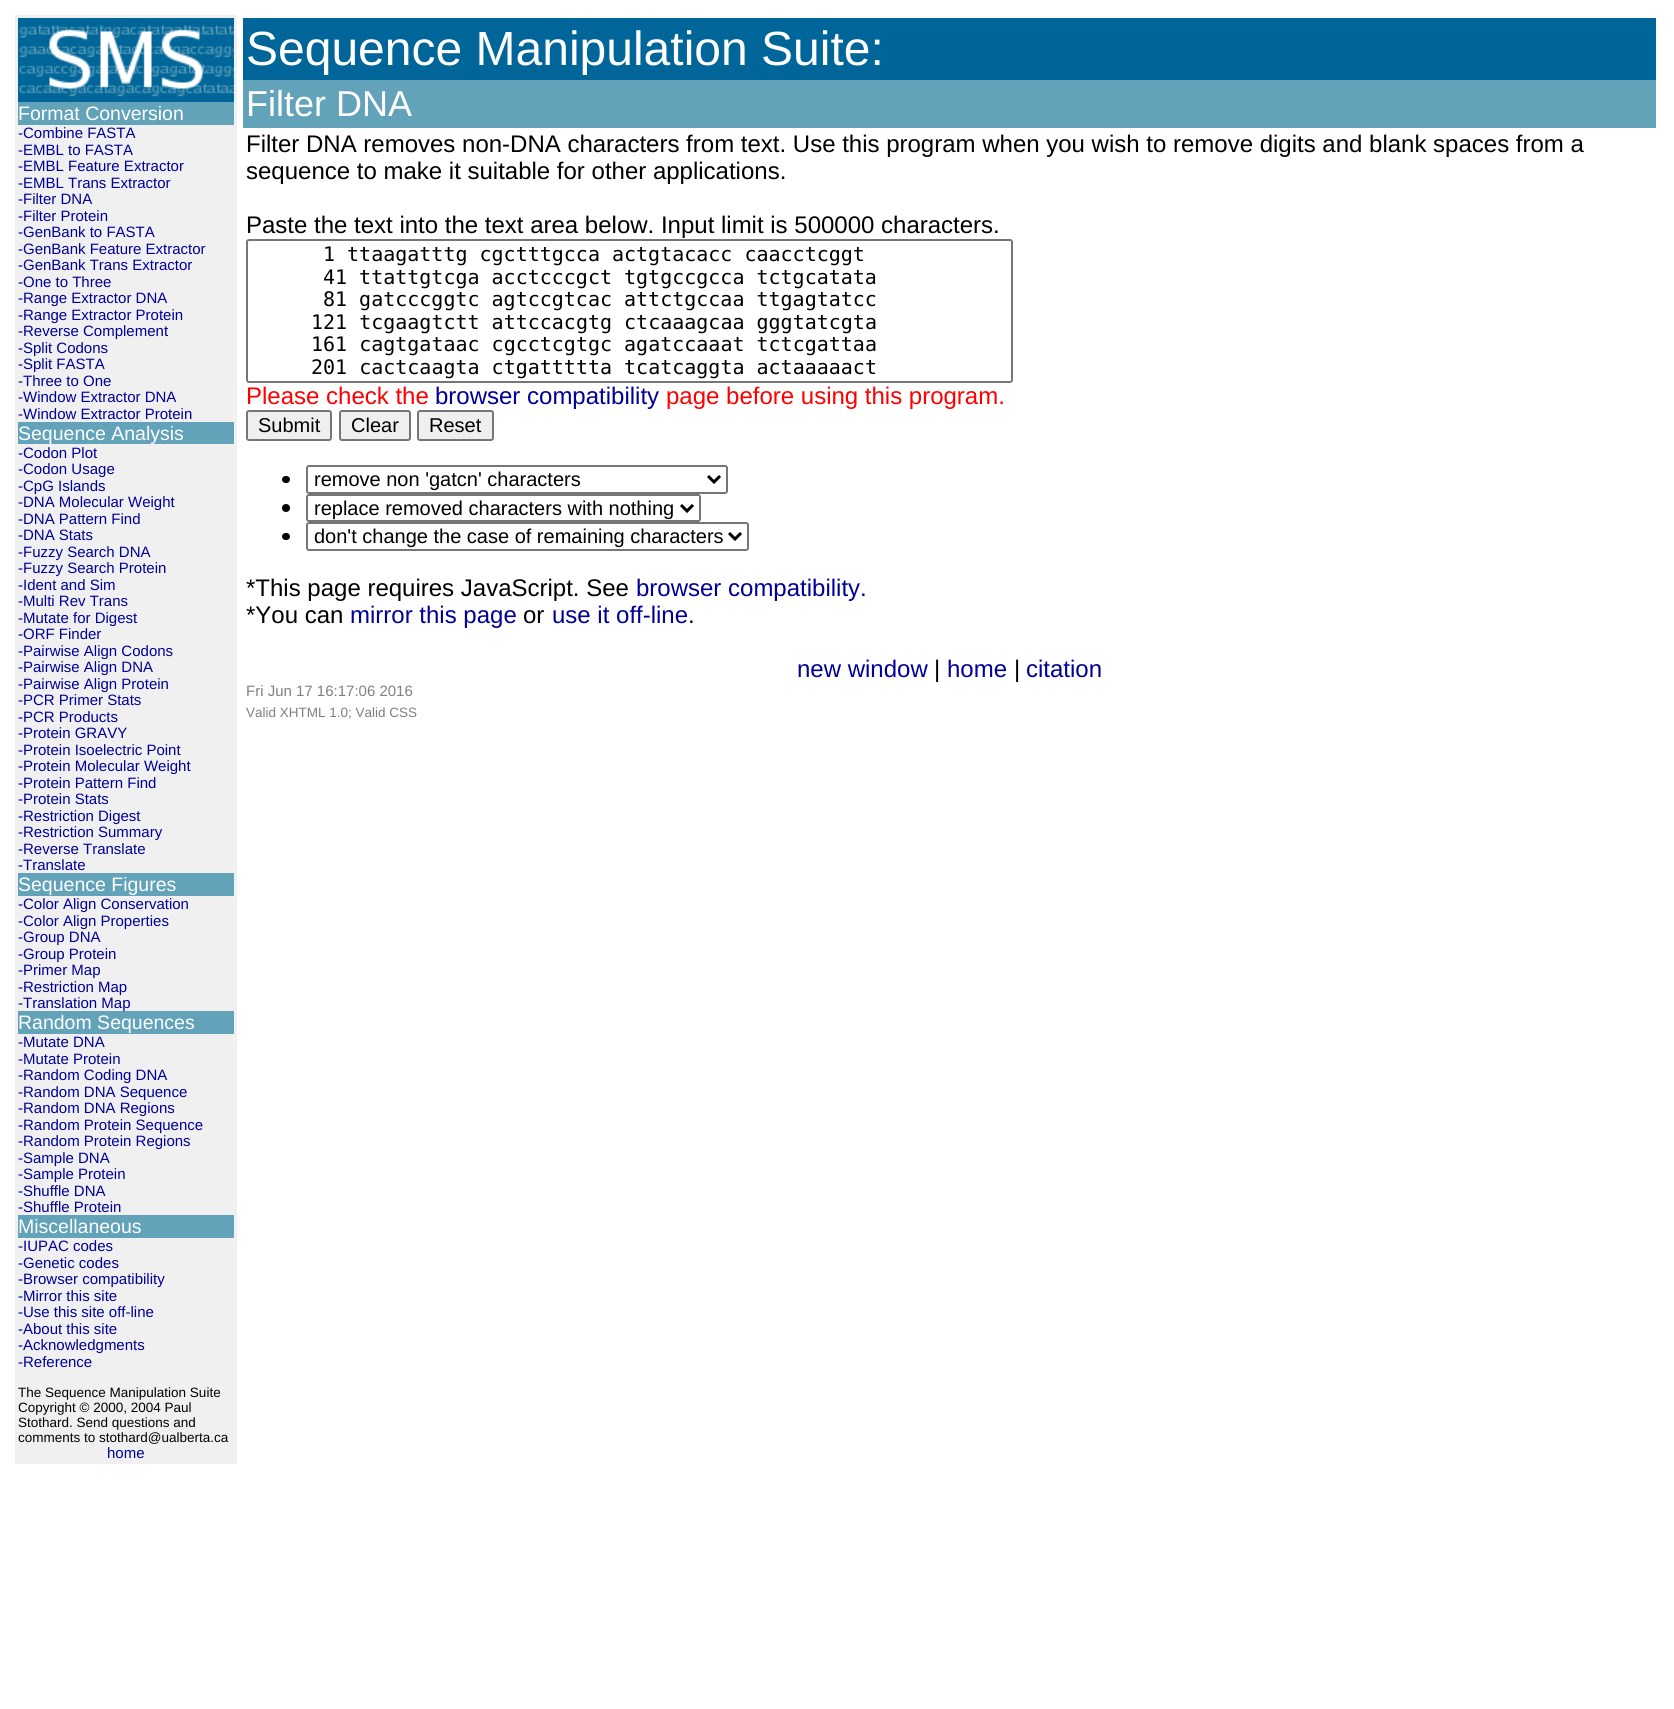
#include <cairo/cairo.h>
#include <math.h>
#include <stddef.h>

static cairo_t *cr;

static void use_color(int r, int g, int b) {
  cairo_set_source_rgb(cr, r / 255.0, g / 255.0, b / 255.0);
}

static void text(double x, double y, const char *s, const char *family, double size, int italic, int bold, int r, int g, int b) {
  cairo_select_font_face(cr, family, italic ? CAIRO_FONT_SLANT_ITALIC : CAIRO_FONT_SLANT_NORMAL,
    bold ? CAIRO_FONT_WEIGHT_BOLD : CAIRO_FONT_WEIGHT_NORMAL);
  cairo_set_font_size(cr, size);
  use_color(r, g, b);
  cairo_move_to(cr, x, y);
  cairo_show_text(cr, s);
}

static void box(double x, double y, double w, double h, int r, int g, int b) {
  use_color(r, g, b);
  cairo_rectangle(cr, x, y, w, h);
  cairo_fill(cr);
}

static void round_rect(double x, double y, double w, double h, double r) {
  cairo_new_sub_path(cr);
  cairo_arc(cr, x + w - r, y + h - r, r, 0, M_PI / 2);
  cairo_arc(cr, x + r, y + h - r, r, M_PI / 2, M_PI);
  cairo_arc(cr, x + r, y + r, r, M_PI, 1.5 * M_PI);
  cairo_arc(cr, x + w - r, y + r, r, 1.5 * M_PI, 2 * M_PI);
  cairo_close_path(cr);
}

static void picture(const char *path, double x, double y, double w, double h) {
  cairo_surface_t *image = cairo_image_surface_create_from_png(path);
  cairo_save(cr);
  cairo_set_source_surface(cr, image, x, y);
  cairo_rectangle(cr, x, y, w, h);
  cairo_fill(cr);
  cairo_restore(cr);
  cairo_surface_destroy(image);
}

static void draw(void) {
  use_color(255, 255, 255);
  cairo_paint(cr);
  box(15, 15, 222, 1449, 240, 240, 240);
  picture("img_01.png", 18, 18, 216, 84);
  box(18, 102, 216, 23, 98, 163, 185);
  box(18, 422, 216, 22, 98, 163, 185);
  box(18, 873, 216, 23, 98, 163, 185);
  box(18, 1011, 216, 23, 98, 163, 185);
  box(18, 1215, 216, 23, 98, 163, 185);
  box(243, 18, 1413, 62, 0, 101, 153);
  box(243, 80, 1413, 48, 98, 163, 185);
  round_rect(247, 240, 765, 142, 2);
  use_color(118, 118, 118);
  cairo_stroke(cr);
  use_color(239, 239, 239);
  round_rect(247, 411, 84, 29, 2);
  cairo_fill_preserve(cr);
  use_color(118, 118, 118);
  cairo_stroke(cr);
  use_color(239, 239, 239);
  round_rect(340, 411, 70, 29, 2);
  cairo_fill_preserve(cr);
  use_color(118, 118, 118);
  cairo_stroke(cr);
  use_color(239, 239, 239);
  round_rect(418, 411, 75, 29, 2);
  cairo_fill_preserve(cr);
  use_color(118, 118, 118);
  cairo_stroke(cr);
  use_color(0, 0, 0);
  round_rect(282, 476, 8, 7, 3.5);
  cairo_fill(cr);
  round_rect(307, 466, 420, 27, 2);
  use_color(118, 118, 118);
  cairo_stroke(cr);
  cairo_new_path(cr);
  cairo_move_to(cr, 708, 476);
  cairo_line_to(cr, 714, 482);
  cairo_line_to(cr, 720, 476);
  use_color(0, 0, 0);
  cairo_set_line_width(cr, 3);
  cairo_stroke(cr);
  cairo_arc(cr, 286, 508, 4, 0, 2 * M_PI);
  cairo_fill(cr);
  round_rect(307, 495, 393, 26, 2);
  use_color(118, 118, 118);
  cairo_set_line_width(cr, 2);
  cairo_stroke(cr);
  cairo_new_path(cr);
  cairo_move_to(cr, 681, 505);
  cairo_line_to(cr, 687, 511);
  cairo_line_to(cr, 693, 505);
  use_color(0, 0, 0);
  cairo_set_line_width(cr, 3);
  cairo_stroke(cr);
  round_rect(282, 533, 8, 7, 3.5);
  cairo_fill(cr);
  round_rect(307, 523, 441, 27, 2);
  use_color(118, 118, 118);
  cairo_set_line_width(cr, 2);
  cairo_stroke(cr);
  cairo_new_path(cr);
  cairo_move_to(cr, 729, 533);
  cairo_line_to(cr, 735, 539);
  cairo_line_to(cr, 741, 533);
  use_color(0, 0, 0);
  cairo_set_line_width(cr, 3);
  cairo_stroke(cr);
  text(18, 120, "Format Conversion", "Liberation Sans", 19.5, 0, 0, 255, 255, 255);
  text(18, 138, "-Combine FASTA", "Liberation Sans", 15, 0, 0, 0, 0, 153);
  text(18, 155, "-EMBL to FASTA", "Liberation Sans", 15, 0, 0, 0, 0, 153);
  text(18, 171, "-EMBL Feature Extractor", "Liberation Sans", 15, 0, 0, 0, 0, 153);
  text(18, 188, "-EMBL Trans Extractor", "Liberation Sans", 15, 0, 0, 0, 0, 153);
  text(18, 204, "-Filter DNA", "Liberation Sans", 15, 0, 0, 0, 0, 153);
  text(18, 221, "-Filter Protein", "Liberation Sans", 15, 0, 0, 0, 0, 153);
  text(18, 237, "-GenBank to FASTA", "Liberation Sans", 15, 0, 0, 0, 0, 153);
  text(18, 254, "-GenBank Feature Extractor", "Liberation Sans", 15, 0, 0, 0, 0, 153);
  text(18, 270, "-GenBank Trans Extractor", "Liberation Sans", 15, 0, 0, 0, 0, 153);
  text(18, 287, "-One to Three", "Liberation Sans", 15, 0, 0, 0, 0, 153);
  text(18, 303, "-Range Extractor DNA", "Liberation Sans", 15, 0, 0, 0, 0, 153);
  text(18, 320, "-Range Extractor Protein", "Liberation Sans", 15, 0, 0, 0, 0, 153);
  text(18, 336, "-Reverse Complement", "Liberation Sans", 15, 0, 0, 0, 0, 153);
  text(18, 353, "-Split Codons", "Liberation Sans", 15, 0, 0, 0, 0, 153);
  text(18, 369, "-Split FASTA", "Liberation Sans", 15, 0, 0, 0, 0, 153);
  text(18, 386, "-Three to One", "Liberation Sans", 15, 0, 0, 0, 0, 153);
  text(18, 402, "-Window Extractor DNA", "Liberation Sans", 15, 0, 0, 0, 0, 153);
  text(18, 419, "-Window Extractor Protein", "Liberation Sans", 15, 0, 0, 0, 0, 153);
  text(18, 440, "Sequence Analysis", "Liberation Sans", 19.5, 0, 0, 255, 255, 255);
  text(18, 458, "-Codon Plot", "Liberation Sans", 15, 0, 0, 0, 0, 153);
  text(18, 474, "-Codon Usage", "Liberation Sans", 15, 0, 0, 0, 0, 153);
  text(18, 491, "-CpG Islands", "Liberation Sans", 15, 0, 0, 0, 0, 153);
  text(18, 507, "-DNA Molecular Weight", "Liberation Sans", 15, 0, 0, 0, 0, 153);
  text(18, 524, "-DNA Pattern Find", "Liberation Sans", 15, 0, 0, 0, 0, 153);
  text(18, 540, "-DNA Stats", "Liberation Sans", 15, 0, 0, 0, 0, 153);
  text(18, 557, "-Fuzzy Search DNA", "Liberation Sans", 15, 0, 0, 0, 0, 153);
  text(18, 573, "-Fuzzy Search Protein", "Liberation Sans", 15, 0, 0, 0, 0, 153);
  text(18, 590, "-Ident and Sim", "Liberation Sans", 15, 0, 0, 0, 0, 153);
  text(18, 606, "-Multi Rev Trans", "Liberation Sans", 15, 0, 0, 0, 0, 153);
  text(18, 623, "-Mutate for Digest", "Liberation Sans", 15, 0, 0, 0, 0, 153);
  text(18, 639, "-ORF Finder", "Liberation Sans", 15, 0, 0, 0, 0, 153);
  text(18, 656, "-Pairwise Align Codons", "Liberation Sans", 15, 0, 0, 0, 0, 153);
  text(18, 672, "-Pairwise Align DNA", "Liberation Sans", 15, 0, 0, 0, 0, 153);
  text(18, 689, "-Pairwise Align Protein", "Liberation Sans", 15, 0, 0, 0, 0, 153);
  text(18, 705, "-PCR Primer Stats", "Liberation Sans", 15, 0, 0, 0, 0, 153);
  text(18, 722, "-PCR Products", "Liberation Sans", 15, 0, 0, 0, 0, 153);
  text(18, 738, "-Protein GRAVY", "Liberation Sans", 15, 0, 0, 0, 0, 153);
  text(18, 755, "-Protein Isoelectric Point", "Liberation Sans", 15, 0, 0, 0, 0, 153);
  text(18, 771, "-Protein Molecular Weight", "Liberation Sans", 15, 0, 0, 0, 0, 153);
  text(18, 788, "-Protein Pattern Find", "Liberation Sans", 15, 0, 0, 0, 0, 153);
  text(18, 804, "-Protein Stats", "Liberation Sans", 15, 0, 0, 0, 0, 153);
  text(18, 821, "-Restriction Digest", "Liberation Sans", 15, 0, 0, 0, 0, 153);
  text(18, 837, "-Restriction Summary", "Liberation Sans", 15, 0, 0, 0, 0, 153);
  text(18, 854, "-Reverse Translate", "Liberation Sans", 15, 0, 0, 0, 0, 153);
  text(18, 870, "-Translate", "Liberation Sans", 15, 0, 0, 0, 0, 153);
  text(18, 891, "Sequence Figures", "Liberation Sans", 19.5, 0, 0, 255, 255, 255);
  text(18, 909, "-Color Align Conservation", "Liberation Sans", 15, 0, 0, 0, 0, 153);
  text(18, 926, "-Color Align Properties", "Liberation Sans", 15, 0, 0, 0, 0, 153);
  text(18, 942, "-Group DNA", "Liberation Sans", 15, 0, 0, 0, 0, 153);
  text(18, 959, "-Group Protein", "Liberation Sans", 15, 0, 0, 0, 0, 153);
  text(18, 975, "-Primer Map", "Liberation Sans", 15, 0, 0, 0, 0, 153);
  text(18, 992, "-Restriction Map", "Liberation Sans", 15, 0, 0, 0, 0, 153);
  text(18, 1008, "-Translation Map", "Liberation Sans", 15, 0, 0, 0, 0, 153);
  text(18, 1029, "Random Sequences", "Liberation Sans", 19.5, 0, 0, 255, 255, 255);
  text(18, 1047, "-Mutate DNA", "Liberation Sans", 15, 0, 0, 0, 0, 153);
  text(18, 1064, "-Mutate Protein", "Liberation Sans", 15, 0, 0, 0, 0, 153);
  text(18, 1080, "-Random Coding DNA", "Liberation Sans", 15, 0, 0, 0, 0, 153);
  text(18, 1097, "-Random DNA Sequence", "Liberation Sans", 15, 0, 0, 0, 0, 153);
  text(18, 1113, "-Random DNA Regions", "Liberation Sans", 15, 0, 0, 0, 0, 153);
  text(18, 1130, "-Random Protein Sequence", "Liberation Sans", 15, 0, 0, 0, 0, 153);
  text(18, 1146, "-Random Protein Regions", "Liberation Sans", 15, 0, 0, 0, 0, 153);
  text(18, 1163, "-Sample DNA", "Liberation Sans", 15, 0, 0, 0, 0, 153);
  text(18, 1179, "-Sample Protein", "Liberation Sans", 15, 0, 0, 0, 0, 153);
  text(18, 1196, "-Shuffle DNA", "Liberation Sans", 15, 0, 0, 0, 0, 153);
  text(18, 1212, "-Shuffle Protein", "Liberation Sans", 15, 0, 0, 0, 0, 153);
  text(18, 1233, "Miscellaneous", "Liberation Sans", 19.5, 0, 0, 255, 255, 255);
  text(18, 1251, "-IUPAC codes", "Liberation Sans", 15, 0, 0, 0, 0, 153);
  text(18, 1268, "-Genetic codes", "Liberation Sans", 15, 0, 0, 0, 0, 153);
  text(18, 1284, "-Browser compatibility", "Liberation Sans", 15, 0, 0, 0, 0, 153);
  text(18, 1301, "-Mirror this site", "Liberation Sans", 15, 0, 0, 0, 0, 153);
  text(18, 1317, "-Use this site off-line", "Liberation Sans", 15, 0, 0, 0, 0, 153);
  text(18, 1334, "-About this site", "Liberation Sans", 15, 0, 0, 0, 0, 153);
  text(18, 1350, "-Acknowledgments", "Liberation Sans", 15, 0, 0, 0, 0, 153);
  text(18, 1367, "-Reference", "Liberation Sans", 15, 0, 0, 0, 0, 153);
  text(18, 1397, "The Sequence Manipulation Suite", "Liberation Sans", 13.5, 0, 0, 0, 0, 0);
  text(18, 1412, "Copyright © 2000, 2004 Paul", "Liberation Sans", 13.5, 0, 0, 0, 0, 0);
  text(18, 1427, "Stothard. Send questions and", "Liberation Sans", 13.5, 0, 0, 0, 0, 0);
  text(18, 1442, "comments to stothard@ualberta.ca", "Liberation Sans", 13.5, 0, 0, 0, 0, 0);
  text(107, 1458, "home", "Liberation Sans", 15, 0, 0, 0, 0, 153);
  text(246, 65, "Sequence Manipulation Suite:", "Liberation Sans", 48, 0, 0, 255, 255, 255);
  text(246, 116, "Filter DNA", "Liberation Sans", 36, 0, 0, 255, 255, 255);
  text(246, 152, "Filter DNA removes non-DNA characters from text. Use this program when you wish to remove digits and blank spaces from a", "Liberation Sans", 24, 0, 0, 0, 0, 0);
  text(246, 179, "sequence to make it suitable for other applications.", "Liberation Sans", 24, 0, 0, 0, 0, 0);
  text(246, 233, "Paste the text into the text area below. Input limit is 500000 characters.", "Liberation Sans", 24, 0, 0, 0, 0, 0);
  text(323, 261, "1 ttaagatttg cgctttgcca actgtacacc caacctcggt", "DejaVu Sans Mono", 20, 0, 0, 0, 0, 0);
  text(323, 284, "41 ttattgtcga acctcccgct tgtgccgcca tctgcatata", "DejaVu Sans Mono", 20, 0, 0, 0, 0, 0);
  text(323, 306, "81 gatcccggtc agtccgtcac attctgccaa ttgagtatcc", "DejaVu Sans Mono", 20, 0, 0, 0, 0, 0);
  text(311, 329, "121 tcgaagtctt attccacgtg ctcaaagcaa gggtatcgta", "DejaVu Sans Mono", 20, 0, 0, 0, 0, 0);
  text(311, 351, "161 cagtgataac cgcctcgtgc agatccaaat tctcgattaa", "DejaVu Sans Mono", 20, 0, 0, 0, 0, 0);
  text(311, 374, "201 cactcaagta ctgattttta tcatcaggta actaaaaact", "DejaVu Sans Mono", 20, 0, 0, 0, 0, 0);
  text(246, 404, "Please check the", "Liberation Sans", 24, 0, 0, 255, 0, 0);
  text(435, 404, "browser compatibility", "Liberation Sans", 24, 0, 0, 0, 0, 153);
  text(666, 404, "page before using this program.", "Liberation Sans", 24, 0, 0, 255, 0, 0);
  text(258, 432, "Submit", "Liberation Sans", 20, 0, 0, 0, 0, 0);
  text(351, 432, "Clear", "Liberation Sans", 20, 0, 0, 0, 0, 0);
  text(429, 432, "Reset", "Liberation Sans", 20, 0, 0, 0, 0, 0);
  text(314, 486, "remove non 'gatcn' characters", "Liberation Sans", 20, 0, 0, 0, 0, 0);
  text(314, 515, "replace removed characters with nothing", "Liberation Sans", 20, 0, 0, 0, 0, 0);
  text(314, 543, "don't change the case of remaining characters", "Liberation Sans", 20, 0, 0, 0, 0, 0);
  text(246, 596, "*This page requires JavaScript. See", "Liberation Sans", 24, 0, 0, 0, 0, 0);
  text(636, 596, "browser compatibility.", "Liberation Sans", 24, 0, 0, 0, 0, 153);
  text(246, 623, "*You can", "Liberation Sans", 24, 0, 0, 0, 0, 0);
  text(350, 623, "mirror this page", "Liberation Sans", 24, 0, 0, 0, 0, 153);
  text(523, 623, "or", "Liberation Sans", 24, 0, 0, 0, 0, 0);
  text(552, 623, "use it off-line", "Liberation Sans", 24, 0, 0, 0, 0, 153);
  text(688, 623, ".", "Liberation Sans", 24, 0, 0, 0, 0, 0);
  text(797, 677, "new window", "Liberation Sans", 24, 0, 0, 0, 0, 153);
  text(934, 677, "|", "Liberation Sans", 24, 0, 0, 0, 0, 0);
  text(947, 677, "home", "Liberation Sans", 24, 0, 0, 0, 0, 153);
  text(1014, 677, "|", "Liberation Sans", 24, 0, 0, 0, 0, 0);
  text(1026, 677, "citation", "Liberation Sans", 24, 0, 0, 0, 0, 153);
  text(246, 696, "Fri Jun 17 16:17:06 2016", "Liberation Sans", 15, 0, 0, 128, 128, 128);
  text(246, 717, "Valid XHTML 1.0; Valid CSS", "Liberation Sans", 13.5, 0, 0, 128, 128, 128);
}

int main(void) {
  cairo_surface_t *surface = cairo_image_surface_create(CAIRO_FORMAT_RGB24, 1674, 1709);
  cr = cairo_create(surface);
  cairo_font_options_t *options = cairo_font_options_create();
  cairo_font_options_set_hint_metrics(options, CAIRO_HINT_METRICS_OFF);
  cairo_font_options_set_hint_style(options, CAIRO_HINT_STYLE_NONE);
  cairo_set_font_options(cr, options);
  cairo_set_miter_limit(cr, 4);
  draw();
  cairo_surface_write_to_png(surface, "out.png");
  cairo_font_options_destroy(options);
  cairo_destroy(cr);
  cairo_surface_destroy(surface);
  return 0;
}
